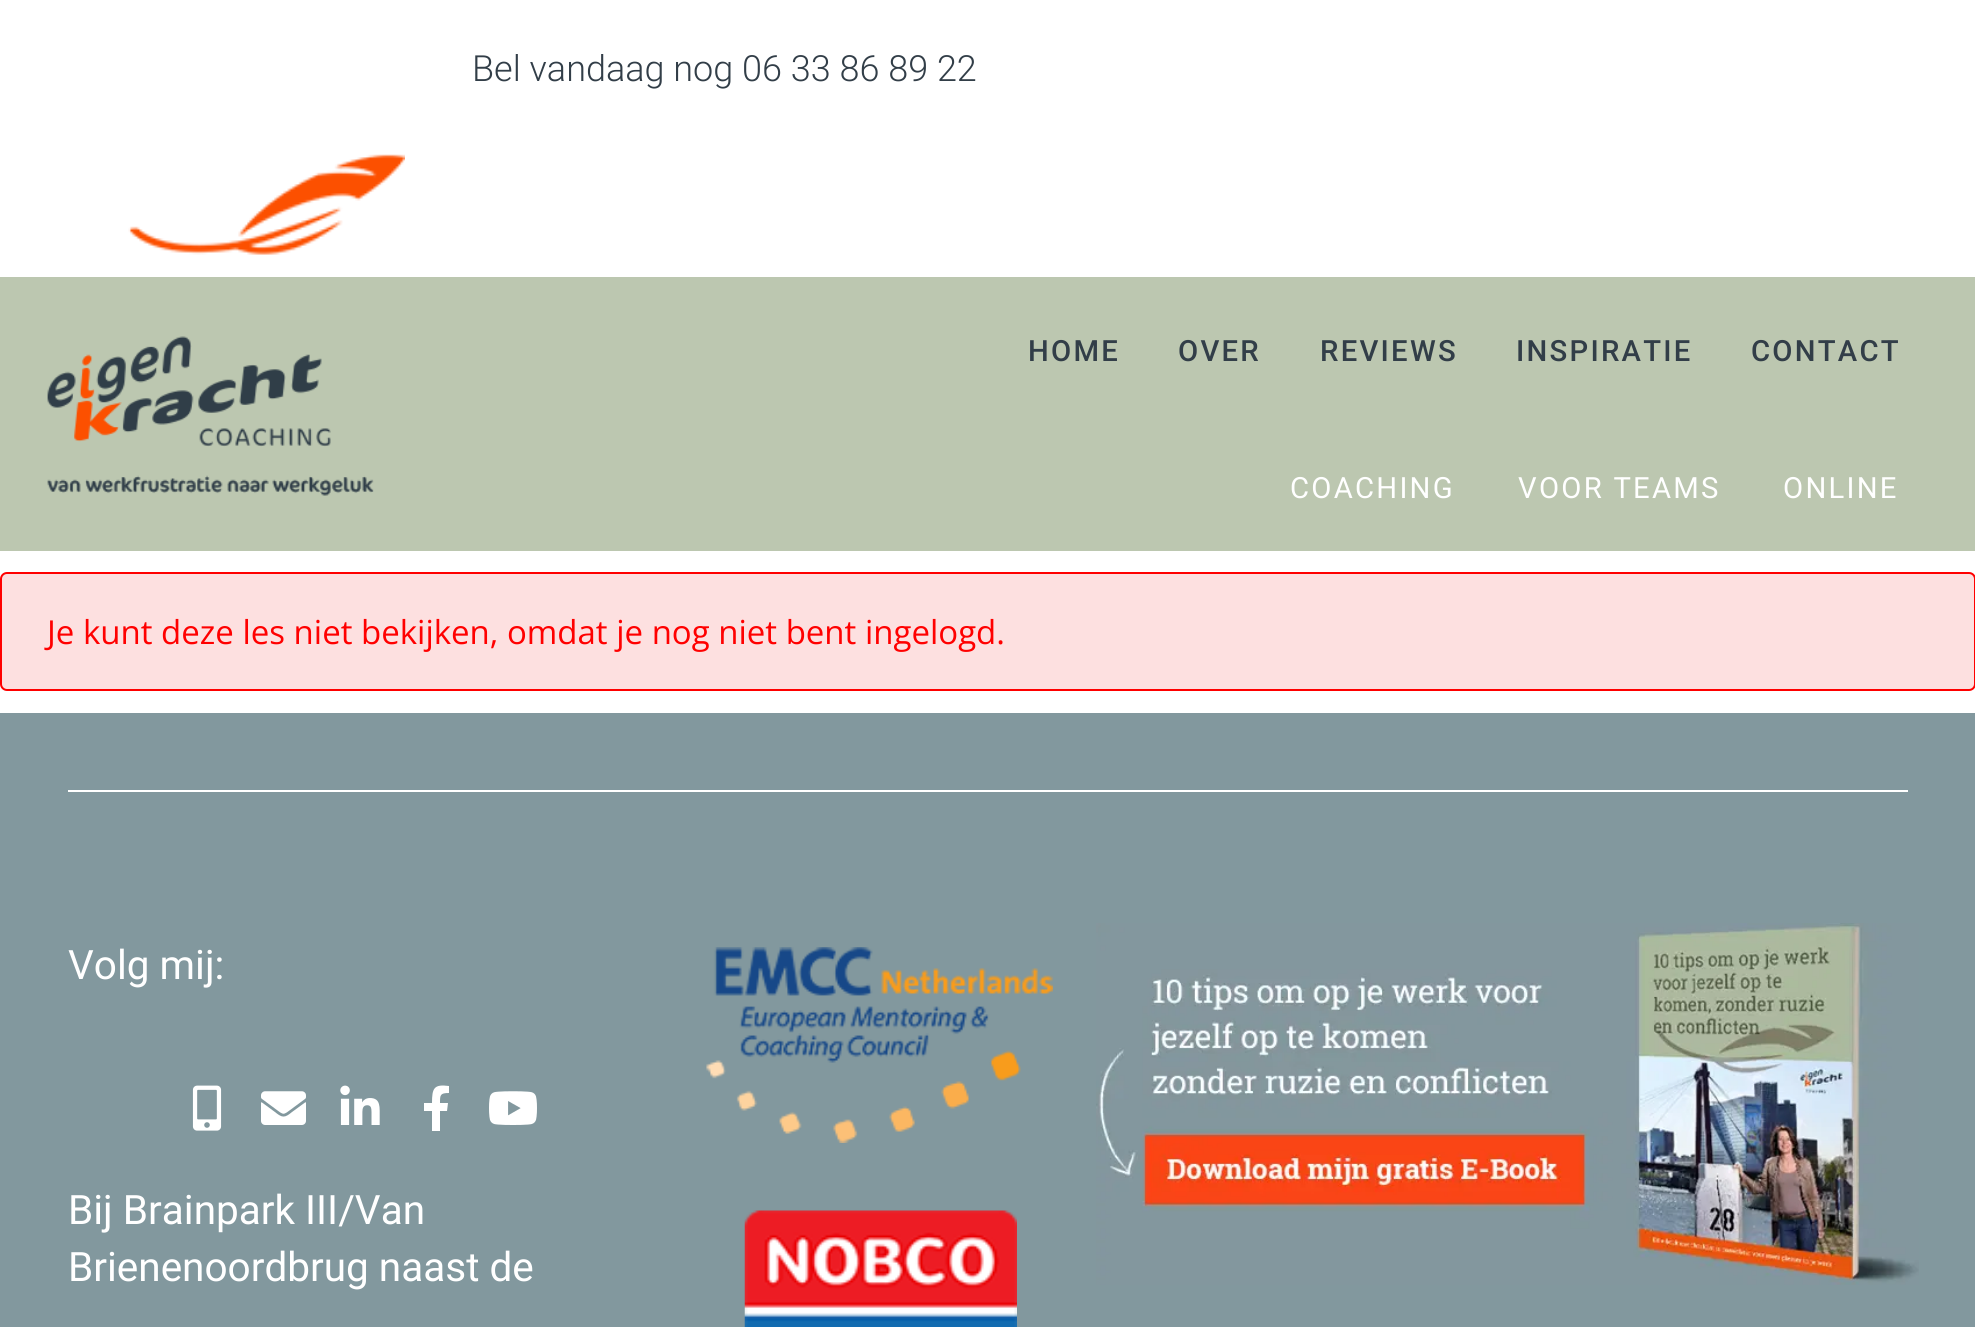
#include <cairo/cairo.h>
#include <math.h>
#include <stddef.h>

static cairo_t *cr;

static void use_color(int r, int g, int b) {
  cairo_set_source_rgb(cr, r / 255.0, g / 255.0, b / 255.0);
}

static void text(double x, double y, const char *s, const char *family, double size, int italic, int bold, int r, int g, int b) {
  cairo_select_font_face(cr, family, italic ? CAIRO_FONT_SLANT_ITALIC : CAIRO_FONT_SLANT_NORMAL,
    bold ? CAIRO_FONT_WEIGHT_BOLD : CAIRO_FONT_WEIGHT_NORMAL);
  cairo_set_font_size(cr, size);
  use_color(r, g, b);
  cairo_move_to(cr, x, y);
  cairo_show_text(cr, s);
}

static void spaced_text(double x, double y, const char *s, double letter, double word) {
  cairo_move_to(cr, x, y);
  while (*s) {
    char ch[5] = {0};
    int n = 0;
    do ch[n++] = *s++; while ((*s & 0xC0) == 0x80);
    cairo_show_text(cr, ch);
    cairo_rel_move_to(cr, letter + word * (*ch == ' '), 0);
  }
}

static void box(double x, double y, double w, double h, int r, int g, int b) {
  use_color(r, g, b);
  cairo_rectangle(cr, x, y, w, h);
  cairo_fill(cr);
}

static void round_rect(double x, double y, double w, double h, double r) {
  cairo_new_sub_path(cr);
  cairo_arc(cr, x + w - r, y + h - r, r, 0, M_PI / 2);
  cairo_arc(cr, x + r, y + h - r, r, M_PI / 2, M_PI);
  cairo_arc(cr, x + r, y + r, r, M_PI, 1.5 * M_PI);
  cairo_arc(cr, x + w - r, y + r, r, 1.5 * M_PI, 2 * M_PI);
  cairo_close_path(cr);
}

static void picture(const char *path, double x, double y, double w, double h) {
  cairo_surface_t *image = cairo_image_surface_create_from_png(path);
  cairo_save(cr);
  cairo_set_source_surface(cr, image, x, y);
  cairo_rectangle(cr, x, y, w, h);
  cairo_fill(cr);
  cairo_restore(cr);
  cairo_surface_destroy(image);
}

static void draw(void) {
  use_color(255, 255, 255);
  cairo_paint(cr);
  picture("img_01.png", 128, 154, 277, 101);
  box(0, 277, 1975, 274, 188, 199, 176);
  picture("img_02.png", 47, 336, 327, 160);
  use_color(253, 224, 224);
  round_rect(1, 573, 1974, 117, 6);
  cairo_fill_preserve(cr);
  use_color(255, 0, 0);
  cairo_stroke(cr);
  box(0, 713, 1975, 614, 130, 152, 158);
  box(68, 790, 1840, 2, 255, 255, 255);
  picture("img_03.png", 192, 1085, 30, 46);
  picture("img_04.png", 261, 1091, 45, 34);
  picture("img_05.png", 340, 1085, 40, 40);
  cairo_new_path(cr);
  cairo_move_to(cr, 447, 1111);
  cairo_line_to(cr, 440, 1111);
  cairo_line_to(cr, 440, 1131);
  cairo_line_to(cr, 432, 1131);
  cairo_line_to(cr, 432, 1111);
  cairo_line_to(cr, 424, 1111);
  cairo_line_to(cr, 424, 1103);
  cairo_line_to(cr, 432, 1103);
  cairo_curve_to(cr, 432, 1088, 434, 1084, 449, 1086);
  cairo_line_to(cr, 449, 1093);
  cairo_curve_to(cr, 440, 1093, 440, 1095, 440, 1103);
  cairo_line_to(cr, 448, 1103);
  cairo_close_path(cr);
  cairo_fill(cr);
  picture("img_06.png", 489, 1091, 48, 34);
  picture("img_07.png", 706, 947, 347, 196);
  picture("img_08.png", 744, 1210, 273, 117);
  picture("img_09.png", 1096, 923, 823, 362);
  text(472, 81, "Bel vandaag nog 06 33 86 89 22", "Roboto Light", 36, 0, 0, 50, 62, 72);
  cairo_select_font_face(cr, "Roboto Medium", CAIRO_FONT_SLANT_NORMAL, CAIRO_FONT_WEIGHT_NORMAL);
  cairo_set_font_size(cr, 29.25);
  spaced_text(1028, 361, "HOME", 2.25, 0);
  spaced_text(1178, 361, "OVER", 2.25, 0);
  spaced_text(1320, 361, "REVIEWS", 2.25, 0);
  spaced_text(1516, 361, "INSPIRATIE", 2.25, 0);
  spaced_text(1751, 361, "CONTACT", 2.25, 0);
  cairo_select_font_face(cr, "Roboto", CAIRO_FONT_SLANT_NORMAL, CAIRO_FONT_WEIGHT_NORMAL);
  use_color(255, 255, 255);
  spaced_text(1290, 498, "COACHING", 2.25, 0);
  spaced_text(1518, 498, "VOOR TEAMS", 2.25, 0);
  spaced_text(1783, 498, "ONLINE", 2.25, 0);
  text(47, 644, "Je kunt deze les niet bekijken, omdat je nog niet bent ingelogd.", "Open Sans", 33, 0, 0, 255, 0, 0);
  text(68, 979, "Volg mij:", "Roboto", 40.5, 0, 0, 255, 255, 255);
  text(68, 1224, "Bij Brainpark III/Van", "Roboto", 40.5, 0, 0, 255, 255, 255);
  text(68, 1281, "Brienenoordbrug naast de", "Roboto", 40.5, 0, 0, 255, 255, 255);
}

int main(void) {
  cairo_surface_t *surface = cairo_image_surface_create(CAIRO_FORMAT_RGB24, 1975, 1327);
  cr = cairo_create(surface);
  cairo_font_options_t *options = cairo_font_options_create();
  cairo_font_options_set_hint_metrics(options, CAIRO_HINT_METRICS_OFF);
  cairo_font_options_set_hint_style(options, CAIRO_HINT_STYLE_NONE);
  cairo_set_font_options(cr, options);
  cairo_set_miter_limit(cr, 4);
  draw();
  cairo_surface_write_to_png(surface, "out.png");
  cairo_font_options_destroy(options);
  cairo_destroy(cr);
  cairo_surface_destroy(surface);
  return 0;
}
